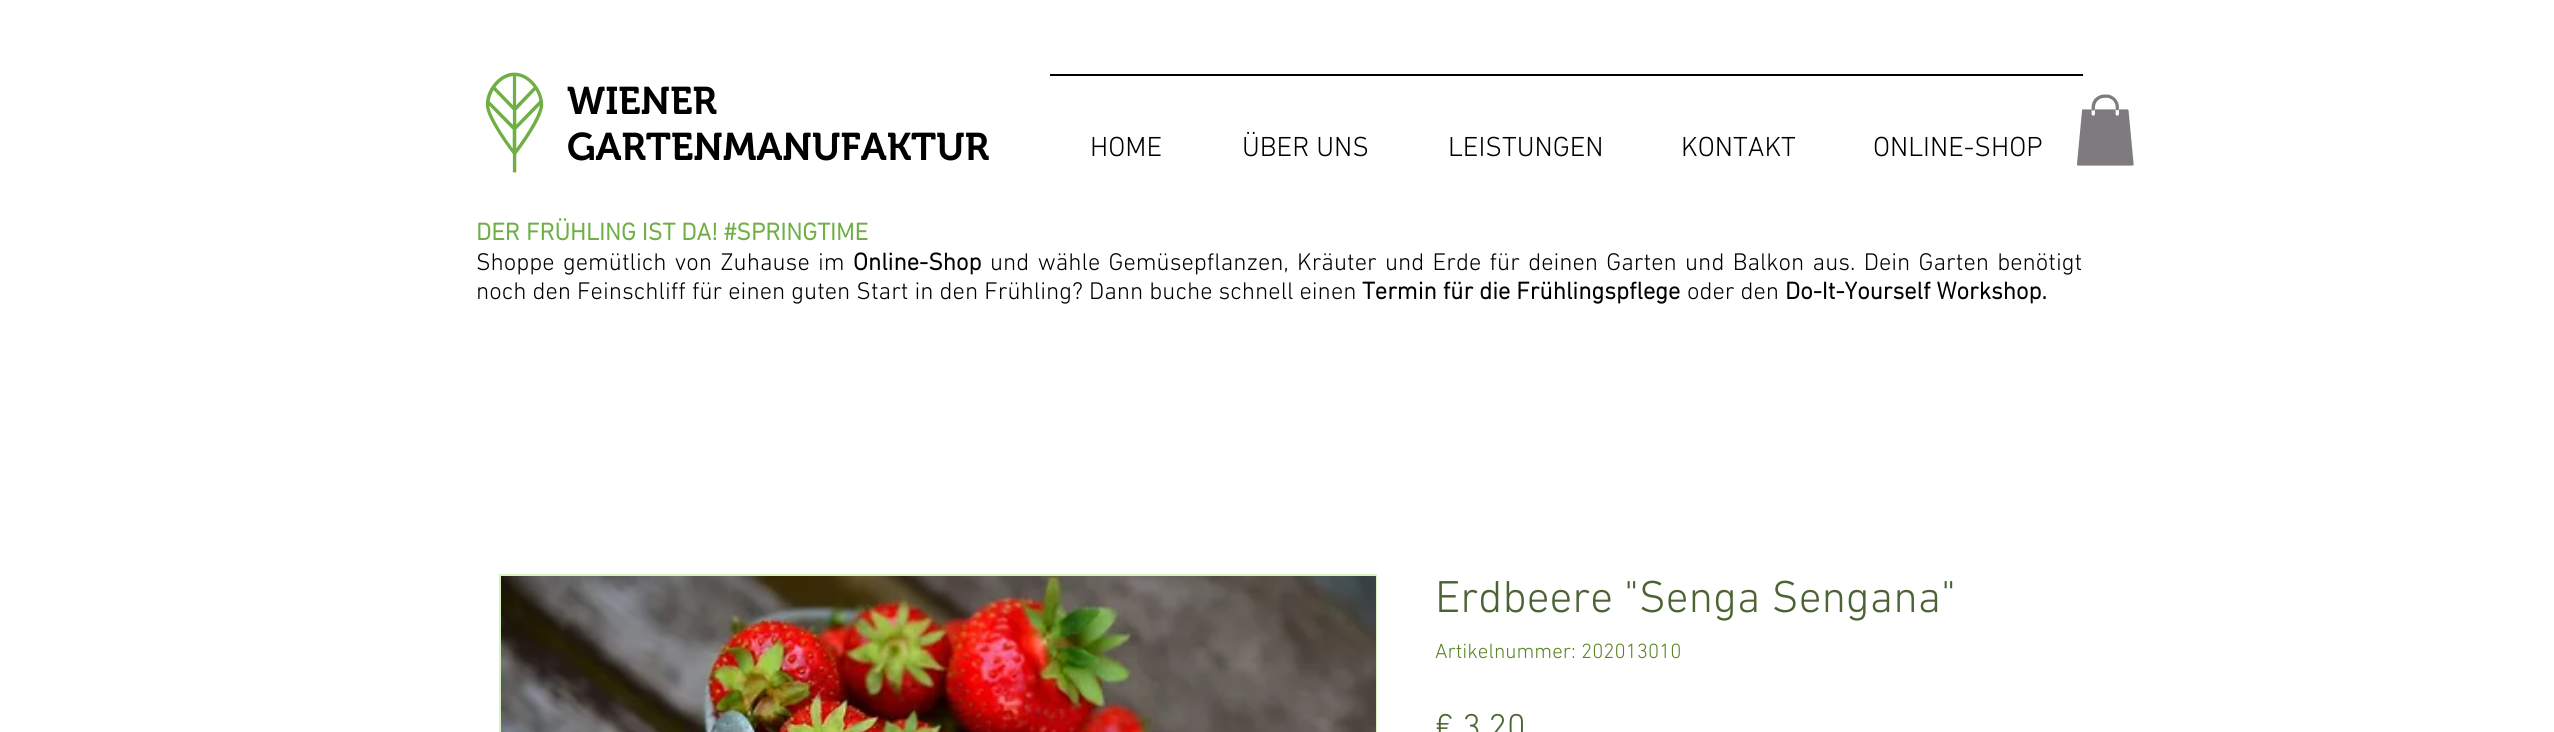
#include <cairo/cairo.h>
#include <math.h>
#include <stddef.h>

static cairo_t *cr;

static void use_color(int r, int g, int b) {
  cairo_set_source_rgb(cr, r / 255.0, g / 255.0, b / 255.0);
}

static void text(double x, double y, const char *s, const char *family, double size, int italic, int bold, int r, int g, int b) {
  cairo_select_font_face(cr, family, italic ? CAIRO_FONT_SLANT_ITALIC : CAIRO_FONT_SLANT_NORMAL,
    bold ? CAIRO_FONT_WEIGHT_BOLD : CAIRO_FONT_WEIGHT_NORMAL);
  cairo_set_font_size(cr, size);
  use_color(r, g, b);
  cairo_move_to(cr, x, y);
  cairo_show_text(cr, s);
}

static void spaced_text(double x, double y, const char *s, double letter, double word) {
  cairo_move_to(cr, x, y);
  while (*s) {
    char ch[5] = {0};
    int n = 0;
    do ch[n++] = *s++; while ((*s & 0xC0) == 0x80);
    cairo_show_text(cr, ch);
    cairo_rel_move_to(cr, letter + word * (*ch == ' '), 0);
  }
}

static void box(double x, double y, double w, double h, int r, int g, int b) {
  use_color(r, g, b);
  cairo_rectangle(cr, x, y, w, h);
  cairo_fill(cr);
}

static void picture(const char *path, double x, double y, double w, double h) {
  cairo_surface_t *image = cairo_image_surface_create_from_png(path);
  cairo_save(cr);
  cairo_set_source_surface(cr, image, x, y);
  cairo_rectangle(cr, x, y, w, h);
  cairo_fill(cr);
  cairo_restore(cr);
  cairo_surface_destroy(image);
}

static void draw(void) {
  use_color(255, 255, 255);
  cairo_paint(cr);
  picture("img_01.png", 485, 72, 59, 101);
  box(1050, 74, 1033, 2, 0, 0, 0);
  picture("img_02.png", 2077, 94, 57, 72);
  cairo_rectangle(cr, 500, 575, 876, 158);
  use_color(215, 243, 194);
  cairo_stroke(cr);
  picture("img_03.png", 501, 576, 875, 156);
  text(567, 114, "WIENER", "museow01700 SemiBold", 38.5, 0, 0, 0, 0, 0);
  text(567, 160, "GARTENMANUFAKTUR", "museow01700 SemiBold", 38.5, 0, 0, 0, 0, 0);
  text(1090, 156, "HOME", "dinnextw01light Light", 28, 0, 0, 0, 0, 0);
  text(1242, 156, "ÜBER UNS", "dinnextw01light Light", 28, 0, 0, 0, 0, 0);
  text(1448, 156, "LEISTUNGEN", "dinnextw01light Light", 28, 0, 0, 0, 0, 0);
  text(1681, 156, "KONTAKT", "dinnextw01light Light", 28, 0, 0, 0, 0, 0);
  text(1873, 156, "ONLINE-SHOP", "dinnextw01light Light", 28, 0, 0, 0, 0, 0);
  text(476, 240, "DER FRÜHLING IST DA! #SPRINGTIME", "dinnextw01light", 24.5, 0, 1, 111, 175, 70);
  cairo_select_font_face(cr, "dinnextw01light Light", CAIRO_FONT_SLANT_NORMAL, CAIRO_FONT_WEIGHT_NORMAL);
  use_color(0, 0, 0);
  spaced_text(476, 270, "Shoppe gemütlich von Zuhause im", 0, 2.25);
  text(853, 270, "Online-Shop", "dinnextw01light", 24.5, 0, 1, 0, 0, 0);
  cairo_select_font_face(cr, "dinnextw01light Light", CAIRO_FONT_SLANT_NORMAL, CAIRO_FONT_WEIGHT_NORMAL);
  spaced_text(990, 270, "und wähle Gemüsepflanzen, Kräuter und Erde für deinen Garten und Balkon aus. Dein Garten benötigt", 0, 2.25);
  text(476, 299, "noch den Feinschliff für einen guten Start in den Frühling? Dann buche schnell einen", "dinnextw01light Light", 24.5, 0, 0, 0, 0, 0);
  text(1362, 299, "Termin für die Frühlingspflege", "dinnextw01light", 24.5, 0, 1, 0, 0, 0);
  text(1687, 299, "oder den", "dinnextw01light Light", 24.5, 0, 0, 0, 0, 0);
  text(1785, 299, "Do-It-Yourself Workshop.", "dinnextw01light", 24.5, 0, 1, 0, 0, 0);
  text(1435, 612, "Erdbeere \"Senga Sengana\"", "dinnextw01light Light", 45.5, 0, 0, 76, 99, 53);
  text(1435, 658, "Artikelnummer: 202013010", "dinnextw01light Light", 21, 0, 0, 88, 133, 34);
  text(1435, 738, "€ 3,20", "dinnextw01light Light", 35, 0, 0, 76, 99, 53);
}

int main(void) {
  cairo_surface_t *surface = cairo_image_surface_create(CAIRO_FORMAT_RGB24, 2554, 732);
  cr = cairo_create(surface);
  cairo_font_options_t *options = cairo_font_options_create();
  cairo_font_options_set_hint_metrics(options, CAIRO_HINT_METRICS_OFF);
  cairo_font_options_set_hint_style(options, CAIRO_HINT_STYLE_NONE);
  cairo_set_font_options(cr, options);
  cairo_set_miter_limit(cr, 4);
  draw();
  cairo_surface_write_to_png(surface, "out.png");
  cairo_font_options_destroy(options);
  cairo_destroy(cr);
  cairo_surface_destroy(surface);
  return 0;
}
